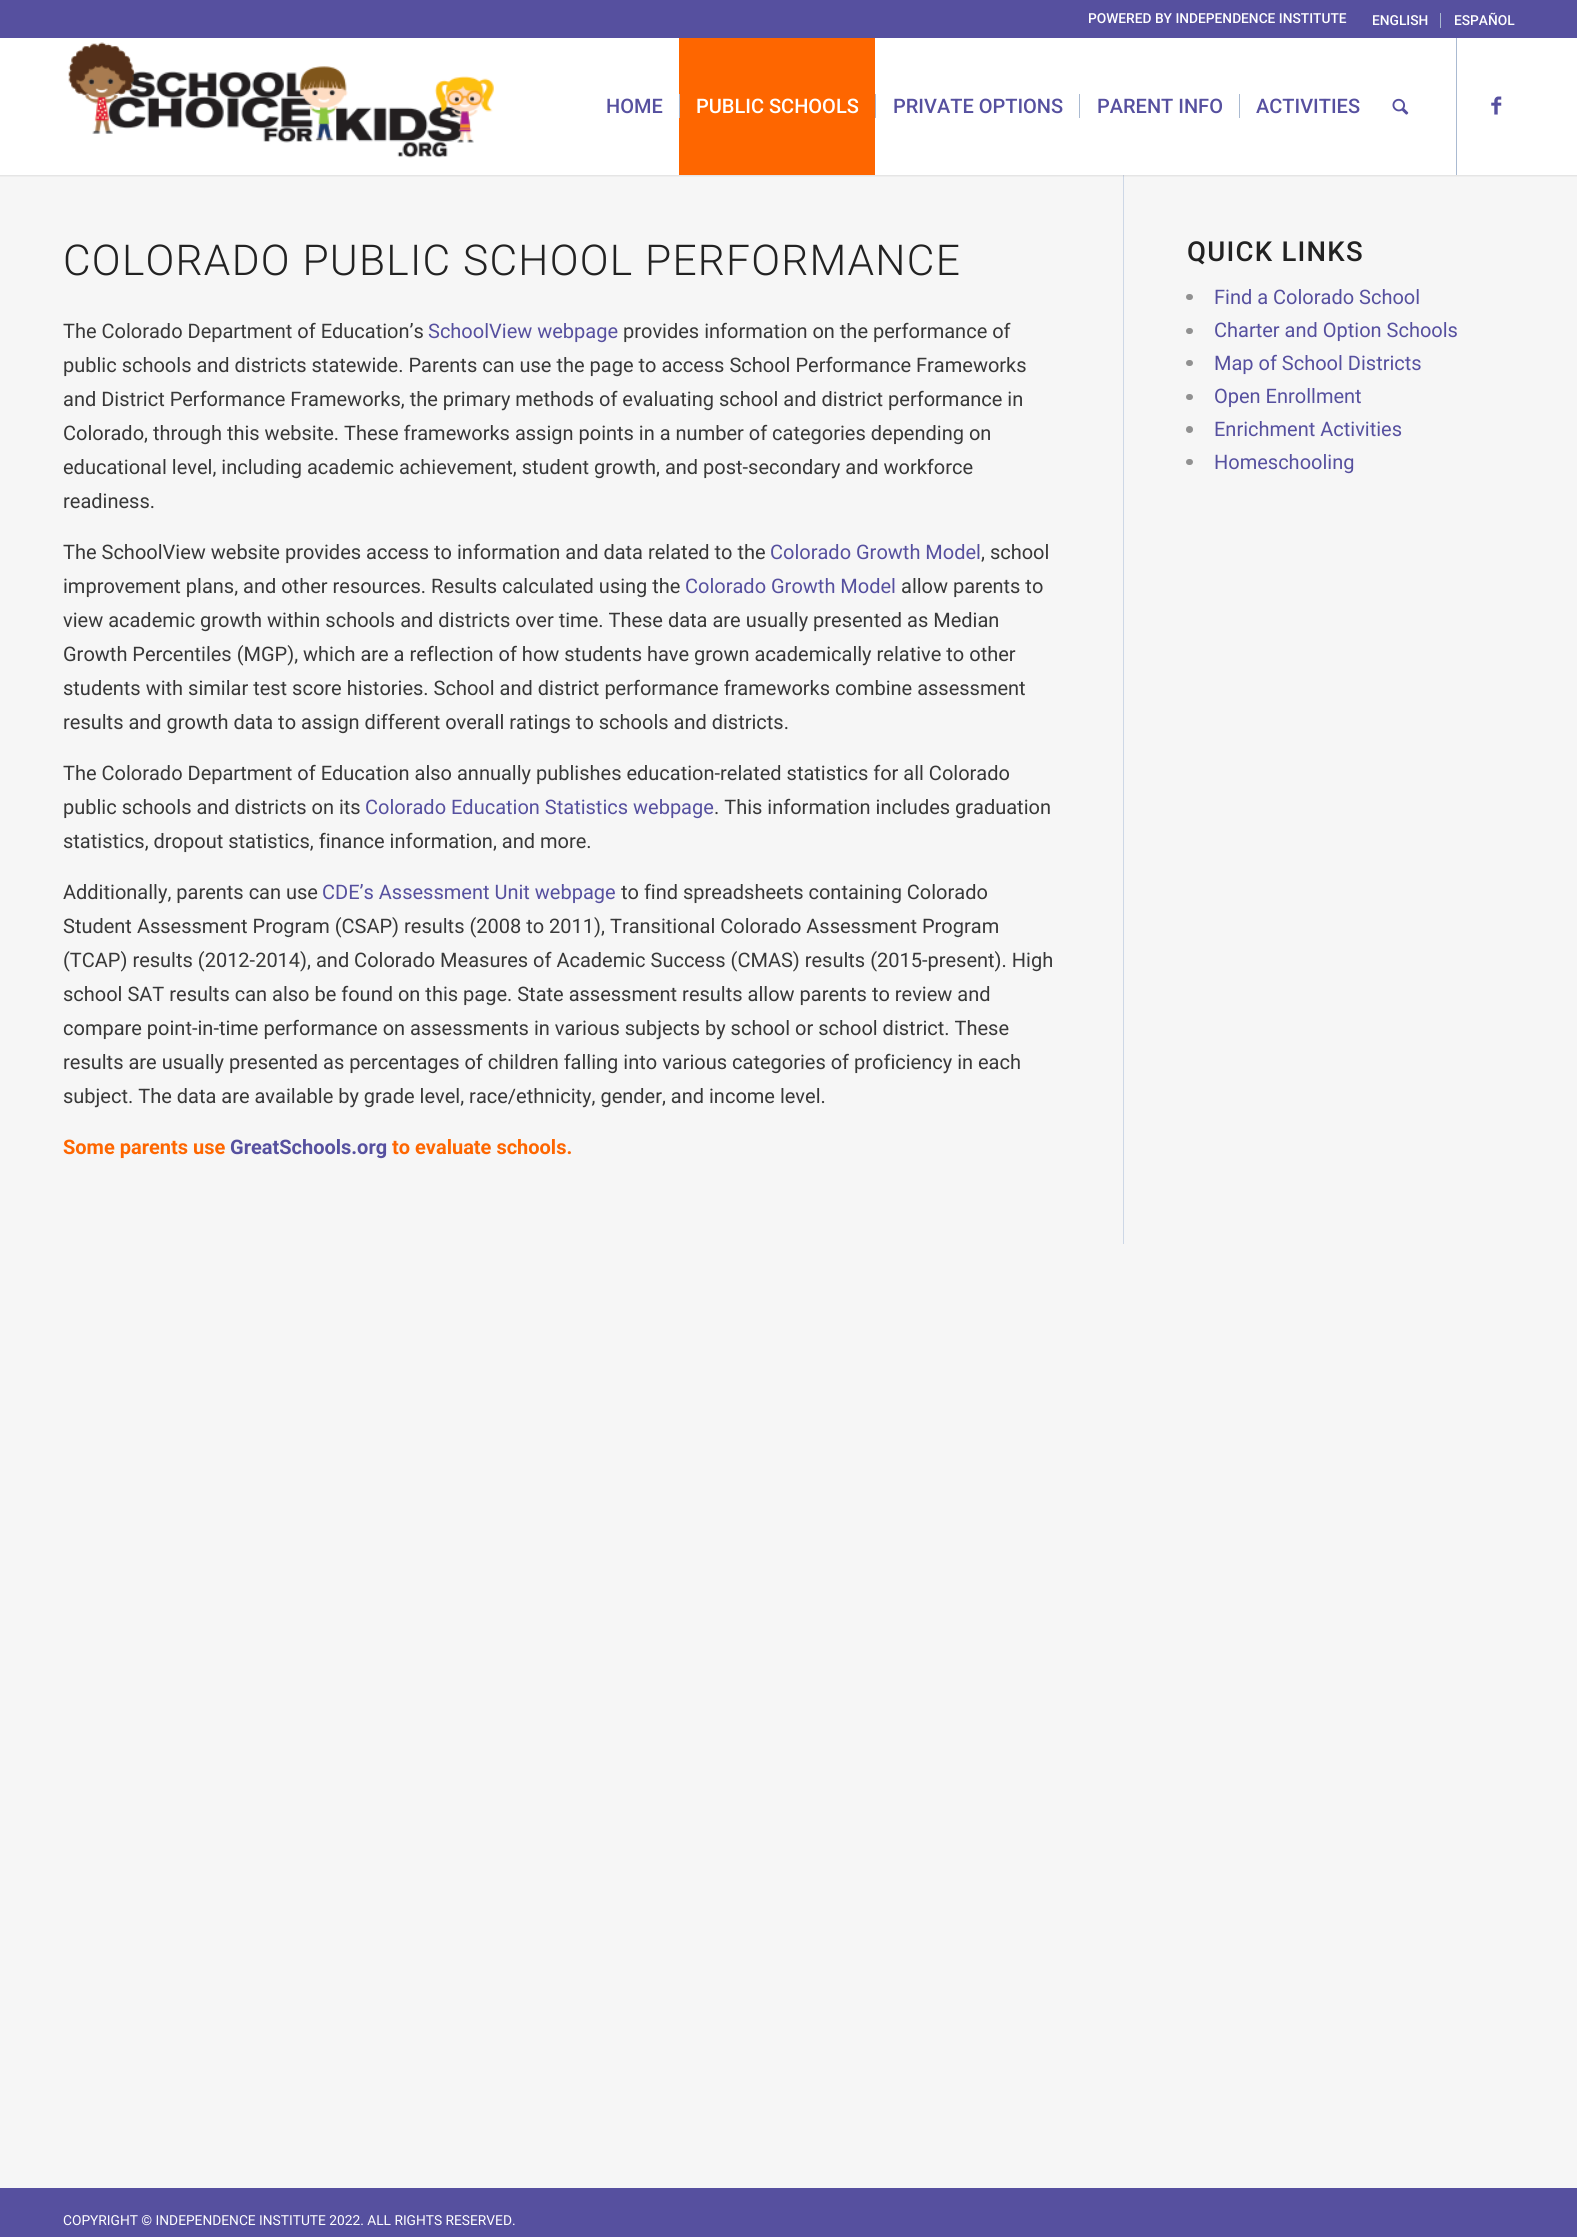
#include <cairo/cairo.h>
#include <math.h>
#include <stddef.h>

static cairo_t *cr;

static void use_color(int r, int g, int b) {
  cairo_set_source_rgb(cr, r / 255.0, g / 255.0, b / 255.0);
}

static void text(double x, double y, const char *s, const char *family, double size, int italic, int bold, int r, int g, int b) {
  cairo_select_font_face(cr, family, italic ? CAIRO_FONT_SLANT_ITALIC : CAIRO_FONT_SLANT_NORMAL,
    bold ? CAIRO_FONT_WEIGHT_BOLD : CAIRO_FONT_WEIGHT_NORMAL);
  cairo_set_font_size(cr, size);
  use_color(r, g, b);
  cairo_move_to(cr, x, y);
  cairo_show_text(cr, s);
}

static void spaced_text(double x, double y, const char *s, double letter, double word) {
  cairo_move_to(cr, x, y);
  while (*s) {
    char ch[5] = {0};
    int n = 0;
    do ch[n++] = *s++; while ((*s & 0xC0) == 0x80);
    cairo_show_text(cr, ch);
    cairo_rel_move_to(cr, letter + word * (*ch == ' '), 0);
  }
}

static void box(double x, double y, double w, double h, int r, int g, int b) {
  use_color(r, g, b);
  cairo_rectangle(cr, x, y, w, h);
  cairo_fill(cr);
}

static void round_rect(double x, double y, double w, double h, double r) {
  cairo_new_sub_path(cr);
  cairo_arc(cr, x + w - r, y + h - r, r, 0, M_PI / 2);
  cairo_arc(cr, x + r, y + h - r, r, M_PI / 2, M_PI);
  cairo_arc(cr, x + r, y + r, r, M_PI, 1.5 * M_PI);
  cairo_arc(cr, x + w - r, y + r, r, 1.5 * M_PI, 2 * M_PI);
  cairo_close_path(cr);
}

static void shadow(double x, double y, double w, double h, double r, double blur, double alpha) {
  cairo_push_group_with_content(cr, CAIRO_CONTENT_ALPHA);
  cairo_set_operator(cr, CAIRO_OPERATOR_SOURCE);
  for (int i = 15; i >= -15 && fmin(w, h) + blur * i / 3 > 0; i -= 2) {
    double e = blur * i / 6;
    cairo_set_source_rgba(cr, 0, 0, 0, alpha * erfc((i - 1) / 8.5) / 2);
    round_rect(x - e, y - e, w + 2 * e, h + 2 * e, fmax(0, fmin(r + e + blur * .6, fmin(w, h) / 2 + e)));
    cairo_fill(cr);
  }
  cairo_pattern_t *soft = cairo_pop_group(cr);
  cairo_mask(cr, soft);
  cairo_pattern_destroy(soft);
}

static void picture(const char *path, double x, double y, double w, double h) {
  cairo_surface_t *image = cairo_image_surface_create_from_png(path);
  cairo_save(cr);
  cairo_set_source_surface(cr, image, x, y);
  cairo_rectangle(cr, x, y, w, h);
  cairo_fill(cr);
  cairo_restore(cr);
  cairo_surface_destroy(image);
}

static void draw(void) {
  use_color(255, 255, 255);
  cairo_paint(cr);
  box(0, 175, 1577, 2013, 246, 246, 246);
  box(1123, 175, 1, 1069, 205, 215, 230);
  cairo_save(cr);
  cairo_rectangle(cr, 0, 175, 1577, 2);
  cairo_clip(cr);
  use_color(0, 0, 0);
  shadow(-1, -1, 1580, 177, 0, 1, 0.1);
  cairo_restore(cr);
  box(0, 0, 1577, 38, 86, 80, 159);
  box(1440, 13, 1, 15, 170, 186, 209);
  picture("img_01.png", 68, 42, 426, 116);
  box(1456, 38, 1, 137, 170, 186, 209);
  box(679, 38, 196, 137, 254, 102, 0);
  box(679, 94, 1, 24, 170, 186, 209);
  box(875, 94, 1, 24, 170, 186, 209);
  box(1079, 94, 1, 24, 170, 186, 209);
  box(1239, 94, 1, 24, 170, 186, 209);
  picture("img_02.png", 1392, 98, 17, 17);
  picture("img_03.png", 1491, 96, 11, 19);
  use_color(145, 145, 145);
  round_rect(1186, 294, 7, 6, 3);
  cairo_fill(cr);
  round_rect(1186, 328, 7, 6, 3);
  cairo_fill(cr);
  round_rect(1186, 360, 7, 6, 3);
  cairo_fill(cr);
  round_rect(1186, 394, 7, 6, 3);
  cairo_fill(cr);
  cairo_arc(cr, 1189.5, 429.5, 3.5, 0, 2 * M_PI);
  cairo_fill(cr);
  round_rect(1186, 459, 7, 6, 3);
  cairo_fill(cr);
  box(0, 2188, 1577, 49, 86, 80, 159);
  text(1088, 23, "POWERED BY INDEPENDENCE INSTITUTE", "Roboto Medium", 13.75, 0, 0, 255, 255, 255);
  text(1372, 25, "ENGLISH", "Roboto Medium", 13.75, 0, 0, 255, 255, 255);
  text(1454, 25, "ESPAÑOL", "Roboto Medium", 13.75, 0, 0, 255, 255, 255);
  text(606, 113, "HOME", "Roboto Medium", 20, 0, 0, 86, 80, 159);
  text(696, 113, "PUBLIC SCHOOLS", "Roboto Medium", 20, 0, 0, 255, 255, 255);
  text(893, 113, "PRIVATE OPTIONS", "Roboto Medium", 20, 0, 0, 86, 80, 159);
  text(1097, 113, "PARENT INFO", "Roboto Medium", 20, 0, 0, 86, 80, 159);
  text(1256, 113, "ACTIVITIES", "Roboto Medium", 20, 0, 0, 86, 80, 159);
  cairo_select_font_face(cr, "Roboto Light", CAIRO_FONT_SLANT_NORMAL, CAIRO_FONT_WEIGHT_NORMAL);
  cairo_set_font_size(cr, 42.5);
  use_color(34, 34, 34);
  spaced_text(63, 275, "COLORADO PUBLIC SCHOOL PERFORMANCE", 1.25, 0);
  text(63, 338, "The Colorado Department of Education’s", "Roboto", 20, 0, 0, 56, 56, 56);
  text(428, 338, "SchoolView webpage", "Roboto", 20, 0, 0, 86, 80, 159);
  text(623, 338, "provides information on the performance of", "Roboto", 20, 0, 0, 56, 56, 56);
  text(63, 372, "public schools and districts statewide. Parents can use the page to access School Performance Frameworks", "Roboto", 20, 0, 0, 56, 56, 56);
  text(63, 406, "and District Performance Frameworks, the primary methods of evaluating school and district performance in", "Roboto", 20, 0, 0, 56, 56, 56);
  text(63, 440, "Colorado, through this website. These frameworks assign points in a number of categories depending on", "Roboto", 20, 0, 0, 56, 56, 56);
  text(63, 474, "educational level, including academic achievement, student growth, and post-secondary and workforce", "Roboto", 20, 0, 0, 56, 56, 56);
  text(63, 508, "readiness.", "Roboto", 20, 0, 0, 56, 56, 56);
  text(63, 559, "The SchoolView website provides access to information and data related to the", "Roboto", 20, 0, 0, 56, 56, 56);
  text(770, 559, "Colorado Growth Model", "Roboto", 20, 0, 0, 86, 80, 159);
  text(981, 559, ", school", "Roboto", 20, 0, 0, 56, 56, 56);
  text(63, 593, "improvement plans, and other resources. Results calculated using the", "Roboto", 20, 0, 0, 56, 56, 56);
  text(685, 593, "Colorado Growth Model", "Roboto", 20, 0, 0, 86, 80, 159);
  text(901, 593, "allow parents to", "Roboto", 20, 0, 0, 56, 56, 56);
  text(63, 627, "view academic growth within schools and districts over time. These data are usually presented as Median", "Roboto", 20, 0, 0, 56, 56, 56);
  text(63, 661, "Growth Percentiles (MGP), which are a reflection of how students have grown academically relative to other", "Roboto", 20, 0, 0, 56, 56, 56);
  text(63, 695, "students with similar test score histories. School and district performance frameworks combine assessment", "Roboto", 20, 0, 0, 56, 56, 56);
  text(63, 729, "results and growth data to assign different overall ratings to schools and districts.", "Roboto", 20, 0, 0, 56, 56, 56);
  text(63, 780, "The Colorado Department of Education also annually publishes education-related statistics for all Colorado", "Roboto", 20, 0, 0, 56, 56, 56);
  text(63, 814, "public schools and districts on its", "Roboto", 20, 0, 0, 56, 56, 56);
  text(365, 814, "Colorado Education Statistics webpage", "Roboto", 20, 0, 0, 86, 80, 159);
  text(714, 814, ". This information includes graduation", "Roboto", 20, 0, 0, 56, 56, 56);
  text(63, 848, "statistics, dropout statistics, finance information, and more.", "Roboto", 20, 0, 0, 56, 56, 56);
  text(63, 899, "Additionally, parents can use", "Roboto", 20, 0, 0, 56, 56, 56);
  text(322, 899, "CDE’s Assessment Unit webpage", "Roboto", 20, 0, 0, 86, 80, 159);
  text(621, 899, "to find spreadsheets containing Colorado", "Roboto", 20, 0, 0, 56, 56, 56);
  text(63, 933, "Student Assessment Program (CSAP) results (2008 to 2011), Transitional Colorado Assessment Program", "Roboto", 20, 0, 0, 56, 56, 56);
  text(63, 967, "(TCAP) results (2012-2014), and Colorado Measures of Academic Success (CMAS) results (2015-present). High", "Roboto", 20, 0, 0, 56, 56, 56);
  text(63, 1001, "school SAT results can also be found on this page. State assessment results allow parents to review and", "Roboto", 20, 0, 0, 56, 56, 56);
  text(63, 1035, "compare point-in-time performance on assessments in various subjects by school or school district. These", "Roboto", 20, 0, 0, 56, 56, 56);
  text(63, 1069, "results are usually presented as percentages of children falling into various categories of proficiency in each", "Roboto", 20, 0, 0, 56, 56, 56);
  text(63, 1103, "subject. The data are available by grade level, race/ethnicity, gender, and income level.", "Roboto", 20, 0, 0, 56, 56, 56);
  text(63, 1154, "Some parents use", "Roboto", 20, 0, 1, 254, 102, 0);
  text(230, 1154, "GreatSchools.org", "Roboto", 20, 0, 1, 86, 80, 159);
  text(392, 1154, "to evaluate schools.", "Roboto", 20, 0, 1, 254, 102, 0);
  cairo_select_font_face(cr, "Roboto Medium", CAIRO_FONT_SLANT_NORMAL, CAIRO_FONT_WEIGHT_NORMAL);
  cairo_set_font_size(cr, 27.5);
  use_color(34, 34, 34);
  spaced_text(1187, 261, "QUICK LINKS", 1.25, 0);
  text(1214, 304, "Find a Colorado School", "Roboto", 20, 0, 0, 86, 80, 159);
  text(1214, 337, "Charter and Option Schools", "Roboto", 20, 0, 0, 86, 80, 159);
  text(1214, 370, "Map of School Districts", "Roboto", 20, 0, 0, 86, 80, 159);
  text(1214, 403, "Open Enrollment", "Roboto", 20, 0, 0, 86, 80, 159);
  text(1214, 436, "Enrichment Activities", "Roboto", 20, 0, 0, 86, 80, 159);
  text(1214, 469, "Homeschooling", "Roboto", 20, 0, 0, 86, 80, 159);
  text(63, 2225, "COPYRIGHT © INDEPENDENCE INSTITUTE 2022. ALL RIGHTS RESERVED.", "Roboto", 13.75, 0, 0, 255, 255, 255);
}

int main(void) {
  cairo_surface_t *surface = cairo_image_surface_create(CAIRO_FORMAT_RGB24, 1577, 2237);
  cr = cairo_create(surface);
  cairo_font_options_t *options = cairo_font_options_create();
  cairo_font_options_set_hint_metrics(options, CAIRO_HINT_METRICS_OFF);
  cairo_font_options_set_hint_style(options, CAIRO_HINT_STYLE_NONE);
  cairo_set_font_options(cr, options);
  cairo_set_miter_limit(cr, 4);
  draw();
  cairo_surface_write_to_png(surface, "out.png");
  cairo_font_options_destroy(options);
  cairo_destroy(cr);
  cairo_surface_destroy(surface);
  return 0;
}
